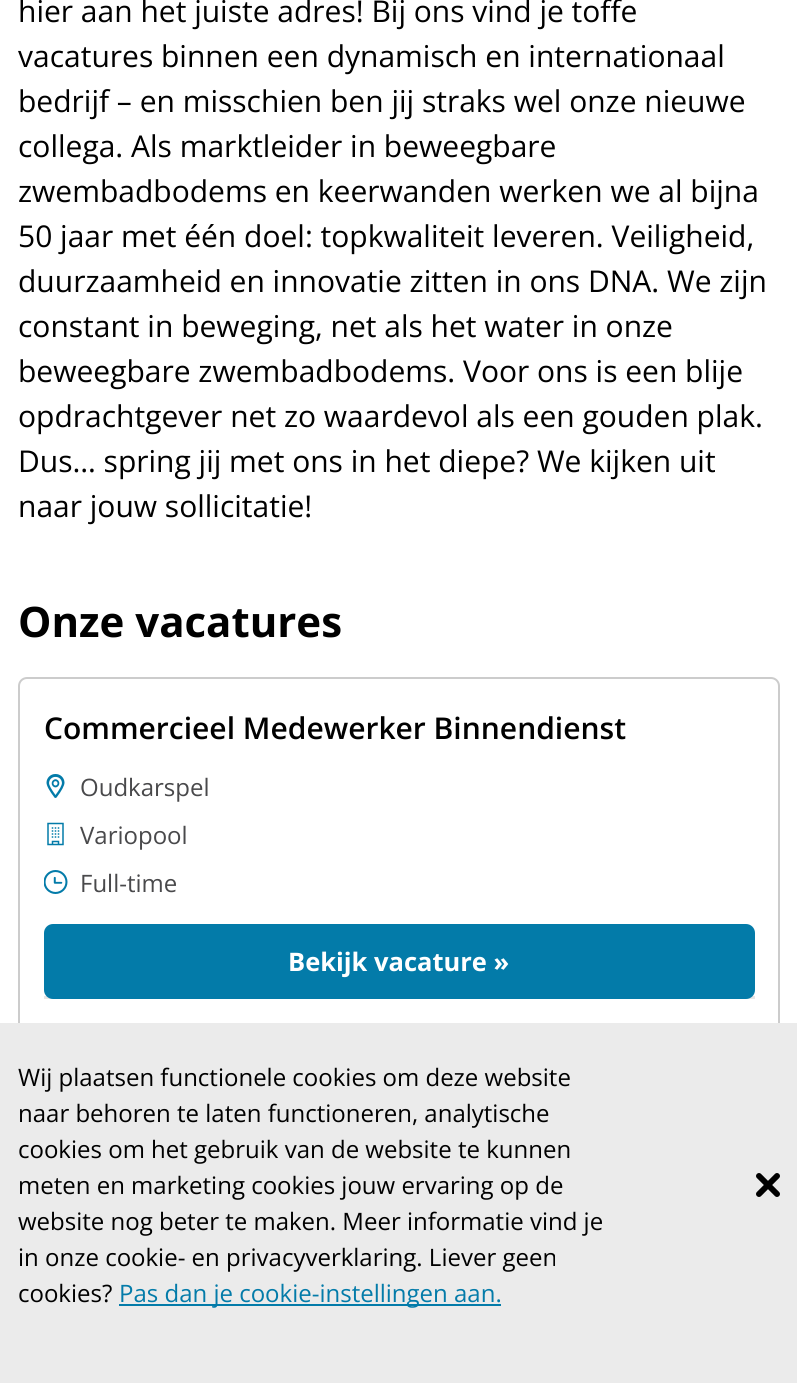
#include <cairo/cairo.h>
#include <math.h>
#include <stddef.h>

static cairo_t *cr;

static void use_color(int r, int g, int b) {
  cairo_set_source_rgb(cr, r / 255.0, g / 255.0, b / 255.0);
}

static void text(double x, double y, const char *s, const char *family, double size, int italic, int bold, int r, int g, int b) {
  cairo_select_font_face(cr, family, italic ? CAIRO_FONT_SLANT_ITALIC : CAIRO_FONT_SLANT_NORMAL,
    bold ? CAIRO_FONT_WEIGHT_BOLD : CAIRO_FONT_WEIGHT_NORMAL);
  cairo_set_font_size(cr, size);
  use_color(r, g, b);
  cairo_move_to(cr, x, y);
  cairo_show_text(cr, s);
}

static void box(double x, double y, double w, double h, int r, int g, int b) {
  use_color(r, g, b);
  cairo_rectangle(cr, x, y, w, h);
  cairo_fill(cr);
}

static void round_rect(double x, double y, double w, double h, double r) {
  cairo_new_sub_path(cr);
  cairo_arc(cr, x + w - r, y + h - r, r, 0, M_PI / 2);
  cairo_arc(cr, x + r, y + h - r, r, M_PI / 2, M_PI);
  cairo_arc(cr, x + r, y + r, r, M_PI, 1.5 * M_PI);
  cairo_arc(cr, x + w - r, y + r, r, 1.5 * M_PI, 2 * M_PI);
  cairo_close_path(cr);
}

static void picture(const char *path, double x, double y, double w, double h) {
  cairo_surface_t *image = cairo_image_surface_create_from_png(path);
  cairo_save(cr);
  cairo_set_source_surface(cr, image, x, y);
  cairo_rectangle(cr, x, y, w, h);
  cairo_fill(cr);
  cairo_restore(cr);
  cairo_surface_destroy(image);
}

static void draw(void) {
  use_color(255, 255, 255);
  cairo_paint(cr);
  round_rect(19, 678, 760, 358, 8);
  use_color(204, 204, 204);
  cairo_stroke(cr);
  picture("img_01.png", 46, 774, 19, 24);
  picture("img_02.png", 47, 822, 17, 24);
  picture("img_03.png", 44, 870, 24, 24);
  box(44, 996, 711, 3, 230, 230, 230);
  use_color(3, 123, 169);
  round_rect(44, 924, 711, 75, 9);
  cairo_fill(cr);
  box(0, 1023, 797, 360, 235, 235, 235);
  box(119, 1304, 382, 2, 3, 123, 169);
  picture("img_04.png", 756, 1173, 24, 24);
  text(18, 22, "hier aan het juiste adres! Bij ons vind je toffe", "Open Sans", 30, 0, 0, 0, 0, 0);
  text(18, 67, "vacatures binnen een dynamisch en internationaal", "Open Sans", 30, 0, 0, 0, 0, 0);
  text(18, 112, "bedrijf – en misschien ben jij straks wel onze nieuwe", "Open Sans", 30, 0, 0, 0, 0, 0);
  text(18, 157, "collega. Als marktleider in beweegbare", "Open Sans", 30, 0, 0, 0, 0, 0);
  text(18, 202, "zwembadbodems en keerwanden werken we al bijna", "Open Sans", 30, 0, 0, 0, 0, 0);
  text(18, 247, "50 jaar met één doel: topkwaliteit leveren. Veiligheid,", "Open Sans", 30, 0, 0, 0, 0, 0);
  text(18, 292, "duurzaamheid en innovatie zitten in ons DNA. We zijn", "Open Sans", 30, 0, 0, 0, 0, 0);
  text(18, 337, "constant in beweging, net als het water in onze", "Open Sans", 30, 0, 0, 0, 0, 0);
  text(18, 382, "beweegbare zwembadbodems. Voor ons is een blije", "Open Sans", 30, 0, 0, 0, 0, 0);
  text(18, 427, "opdrachtgever net zo waardevol als een gouden plak.", "Open Sans", 30, 0, 0, 0, 0, 0);
  text(18, 472, "Dus… spring jij met ons in het diepe? We kijken uit", "Open Sans", 30, 0, 0, 0, 0, 0);
  text(18, 517, "naar jouw sollicitatie!", "Open Sans", 30, 0, 0, 0, 0, 0);
  text(18, 637, "Onze vacatures", "Open Sans", 42, 0, 1, 0, 0, 0);
  text(44, 739, "Commercieel Medewerker Binnendienst", "Open Sans SemiBold", 30, 0, 0, 0, 0, 0);
  text(80, 796, "Oudkarspel", "Open Sans", 24, 0, 0, 73, 73, 75);
  text(80, 844, "Variopool", "Open Sans", 24, 0, 0, 73, 73, 75);
  text(80, 892, "Full-time", "Open Sans", 24, 0, 0, 73, 73, 75);
  text(288, 971, "Bekijk vacature »", "Open Sans", 25.5, 0, 1, 255, 255, 255);
  text(18, 1086, "Wij plaatsen functionele cookies om deze website", "Open Sans", 24, 0, 0, 0, 0, 0);
  text(18, 1122, "naar behoren te laten functioneren, analytische", "Open Sans", 24, 0, 0, 0, 0, 0);
  text(18, 1158, "cookies om het gebruik van de website te kunnen", "Open Sans", 24, 0, 0, 0, 0, 0);
  text(18, 1194, "meten en marketing cookies jouw ervaring op de", "Open Sans", 24, 0, 0, 0, 0, 0);
  text(18, 1230, "website nog beter te maken. Meer informatie vind je", "Open Sans", 24, 0, 0, 0, 0, 0);
  text(18, 1266, "in onze cookie- en privacyverklaring. Liever geen", "Open Sans", 24, 0, 0, 0, 0, 0);
  text(18, 1302, "cookies?", "Open Sans", 24, 0, 0, 0, 0, 0);
  text(119, 1302, "Pas dan je cookie-instellingen aan.", "Open Sans", 24, 0, 0, 3, 123, 169);
}

int main(void) {
  cairo_surface_t *surface = cairo_image_surface_create(CAIRO_FORMAT_RGB24, 797, 1383);
  cr = cairo_create(surface);
  cairo_font_options_t *options = cairo_font_options_create();
  cairo_font_options_set_hint_metrics(options, CAIRO_HINT_METRICS_OFF);
  cairo_font_options_set_hint_style(options, CAIRO_HINT_STYLE_NONE);
  cairo_set_font_options(cr, options);
  cairo_set_miter_limit(cr, 4);
  draw();
  cairo_surface_write_to_png(surface, "out.png");
  cairo_font_options_destroy(options);
  cairo_destroy(cr);
  cairo_surface_destroy(surface);
  return 0;
}
